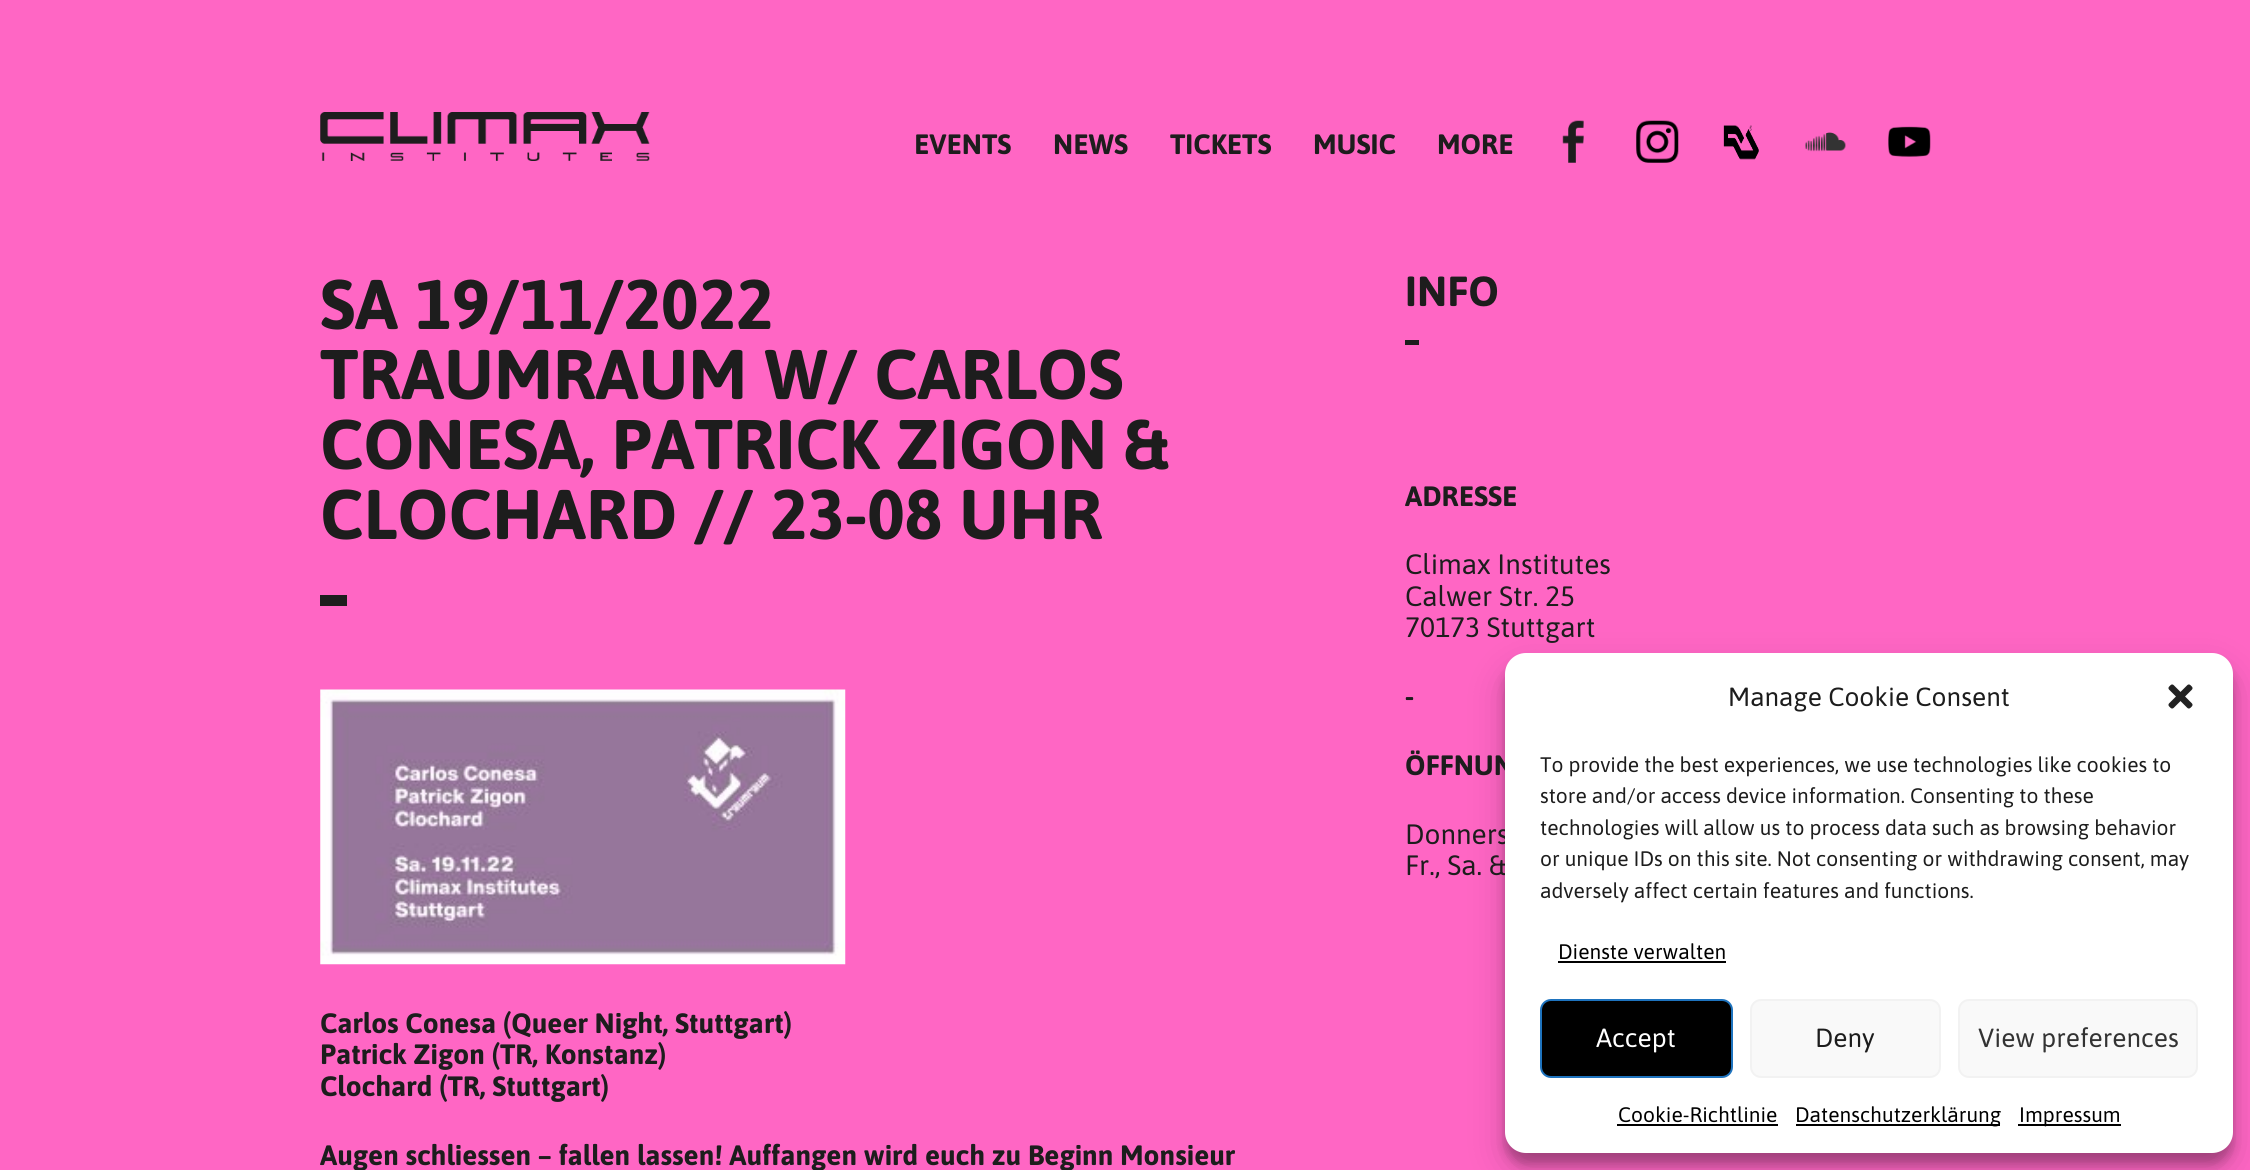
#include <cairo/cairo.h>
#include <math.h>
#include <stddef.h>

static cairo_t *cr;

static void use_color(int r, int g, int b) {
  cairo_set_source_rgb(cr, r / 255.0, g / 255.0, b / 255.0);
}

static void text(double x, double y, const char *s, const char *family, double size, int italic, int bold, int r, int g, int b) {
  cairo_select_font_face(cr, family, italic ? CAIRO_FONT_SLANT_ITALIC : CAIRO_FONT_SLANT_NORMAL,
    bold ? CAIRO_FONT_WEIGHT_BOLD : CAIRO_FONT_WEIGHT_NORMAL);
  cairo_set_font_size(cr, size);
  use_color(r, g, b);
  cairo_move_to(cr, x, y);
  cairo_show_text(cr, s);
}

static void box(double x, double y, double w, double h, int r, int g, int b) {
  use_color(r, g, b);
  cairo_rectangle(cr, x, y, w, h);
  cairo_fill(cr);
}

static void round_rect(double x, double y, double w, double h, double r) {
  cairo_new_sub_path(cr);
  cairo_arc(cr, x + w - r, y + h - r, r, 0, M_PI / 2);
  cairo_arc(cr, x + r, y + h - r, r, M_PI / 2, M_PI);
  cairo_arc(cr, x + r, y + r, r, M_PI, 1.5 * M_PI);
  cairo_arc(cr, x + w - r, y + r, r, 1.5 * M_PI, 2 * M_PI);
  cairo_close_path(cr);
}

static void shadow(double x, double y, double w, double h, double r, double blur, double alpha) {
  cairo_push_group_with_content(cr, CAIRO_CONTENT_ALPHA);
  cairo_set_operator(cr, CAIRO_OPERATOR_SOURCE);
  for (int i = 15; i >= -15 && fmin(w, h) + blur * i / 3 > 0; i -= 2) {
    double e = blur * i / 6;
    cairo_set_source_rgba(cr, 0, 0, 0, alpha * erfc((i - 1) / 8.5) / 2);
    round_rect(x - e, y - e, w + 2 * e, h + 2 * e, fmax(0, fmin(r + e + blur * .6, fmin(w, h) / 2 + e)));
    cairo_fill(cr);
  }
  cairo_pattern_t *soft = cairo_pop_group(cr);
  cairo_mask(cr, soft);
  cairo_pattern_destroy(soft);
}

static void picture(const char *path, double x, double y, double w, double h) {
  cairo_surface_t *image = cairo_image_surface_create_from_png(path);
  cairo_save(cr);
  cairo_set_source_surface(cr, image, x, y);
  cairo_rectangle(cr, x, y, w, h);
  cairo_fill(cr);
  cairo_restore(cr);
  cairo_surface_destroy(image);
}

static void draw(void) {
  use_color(255, 102, 196);
  cairo_paint(cr);
  picture("img_01.png", 320, 112, 330, 49);
  picture("img_02.png", 1562, 120, 22, 43);
  picture("img_03.png", 1636, 120, 43, 43);
  picture("img_04.png", 1723, 125, 36, 35);
  picture("img_05.png", 1805, 132, 41, 20);
  picture("img_06.png", 1888, 126, 43, 31);
  box(320, 595, 27, 11, 29, 29, 29);
  picture("img_07.png", 320, 689, 526, 276);
  box(1405, 340, 14, 5, 29, 29, 29);
  use_color(0, 0, 0);
  shadow(1505, 663, 728, 501, 21, 5, 0.23);
  shadow(1505, 670, 728, 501, 21, 17.5, 0.19);
  text(914, 154, "EVENTS", "Asap", 28, 0, 1, 29, 29, 29);
  text(1053, 154, "NEWS", "Asap", 28, 0, 1, 29, 29, 29);
  text(1170, 154, "TICKETS", "Asap", 28, 0, 1, 29, 29, 29);
  text(1313, 154, "MUSIC", "Asap", 28, 0, 1, 29, 29, 29);
  text(1437, 154, "MORE", "Asap", 28, 0, 1, 29, 29, 29);
  text(320, 329, "SA 19/11/2022", "Asap", 70, 0, 1, 29, 29, 29);
  text(320, 399, "TRAUMRAUM W/ CARLOS", "Asap", 70, 0, 1, 29, 29, 29);
  text(320, 469, "CONESA, PATRICK ZIGON &", "Asap", 70, 0, 1, 29, 29, 29);
  text(320, 539, "CLOCHARD // 23-08 UHR", "Asap", 70, 0, 1, 29, 29, 29);
  text(320, 1033, "Carlos Conesa (Queer Night, Stuttgart)", "Asap", 28, 0, 1, 29, 29, 29);
  text(320, 1064, "Patrick Zigon (TR, Konstanz)", "Asap", 28, 0, 1, 29, 29, 29);
  text(320, 1096, "Clochard (TR, Stuttgart)", "Asap", 28, 0, 1, 29, 29, 29);
  text(320, 1165, "Augen schliessen – fallen lassen! Auffangen wird euch zu Beginn Monsieur", "Asap", 28, 0, 1, 29, 29, 29);
  text(1405, 306, "INFO", "Asap", 42, 0, 1, 29, 29, 29);
  text(1405, 506, "ADRESSE", "Asap", 28, 0, 1, 29, 29, 29);
  text(1405, 574, "Climax Institutes", "Asap", 28, 0, 0, 29, 29, 29);
  text(1405, 606, "Calwer Str. 25", "Asap", 28, 0, 0, 29, 29, 29);
  text(1405, 637, "70173 Stuttgart", "Asap", 28, 0, 0, 29, 29, 29);
  text(1405, 706, "-", "Asap", 28, 0, 1, 29, 29, 29);
  text(1405, 775, "ÖFFNUN", "Asap", 28, 0, 1, 29, 29, 29);
  text(1405, 844, "Donners", "Asap", 28, 0, 0, 29, 29, 29);
  text(1405, 875, "Fr., Sa. &", "Asap", 28, 0, 0, 29, 29, 29);
  use_color(255, 255, 255);
  round_rect(1505, 653, 728, 500, 21);
  cairo_fill(cr);
  text(1728, 706, "Manage Cookie Consent", "Asap", 26.25, 0, 0, 29, 29, 29);
  picture("img_08.png", 2168, 684, 25, 25);
  text(1540, 772, "To provide the best experiences, we use technologies like cookies to", "Asap", 21, 0, 0, 29, 29, 29);
  text(1540, 803, "store and/or access device information. Consenting to these", "Asap", 21, 0, 0, 29, 29, 29);
  text(1540, 835, "technologies will allow us to process data such as browsing behavior", "Asap", 21, 0, 0, 29, 29, 29);
  text(1540, 866, "or unique IDs on this site. Not consenting or withdrawing consent, may", "Asap", 21, 0, 0, 29, 29, 29);
  text(1540, 898, "adversely affect certain features and functions.", "Asap", 21, 0, 0, 29, 29, 29);
  text(1558, 959, "Dienste verwalten", "Asap", 21, 0, 0, 0, 0, 0);
  box(1558, 961, 168, 2, 0, 0, 0);
  round_rect(1541, 1000, 191, 77, 10);
  cairo_fill_preserve(cr);
  use_color(30, 115, 190);
  cairo_stroke(cr);
  text(1596, 1047, "Accept", "Asap", 26.25, 0, 0, 255, 255, 255);
  use_color(249, 249, 249);
  round_rect(1751, 1000, 189, 77, 10);
  cairo_fill_preserve(cr);
  use_color(242, 242, 242);
  cairo_stroke(cr);
  text(1815, 1047, "Deny", "Asap", 26.25, 0, 0, 29, 29, 29);
  use_color(249, 249, 249);
  round_rect(1959, 1000, 238, 77, 10);
  cairo_fill_preserve(cr);
  use_color(242, 242, 242);
  cairo_stroke(cr);
  text(1978, 1047, "View preferences", "Asap", 26.25, 0, 0, 51, 51, 51);
  text(1618, 1122, "Cookie-Richtlinie", "Asap", 21, 0, 0, 0, 0, 0);
  box(1617, 1124, 161, 2, 0, 0, 0);
  box(1796, 1124, 204, 2, 0, 0, 0);
  text(1795, 1122, "Datenschutzerklärung", "Asap", 21, 0, 0, 0, 0, 0);
  box(2018, 1124, 103, 2, 0, 0, 0);
  text(2019, 1122, "Impressum", "Asap", 21, 0, 0, 0, 0, 0);
}

int main(void) {
  cairo_surface_t *surface = cairo_image_surface_create(CAIRO_FORMAT_RGB24, 2250, 1170);
  cr = cairo_create(surface);
  cairo_font_options_t *options = cairo_font_options_create();
  cairo_font_options_set_hint_metrics(options, CAIRO_HINT_METRICS_OFF);
  cairo_font_options_set_hint_style(options, CAIRO_HINT_STYLE_NONE);
  cairo_set_font_options(cr, options);
  cairo_set_miter_limit(cr, 4);
  draw();
  cairo_surface_write_to_png(surface, "out.png");
  cairo_font_options_destroy(options);
  cairo_destroy(cr);
  cairo_surface_destroy(surface);
  return 0;
}
